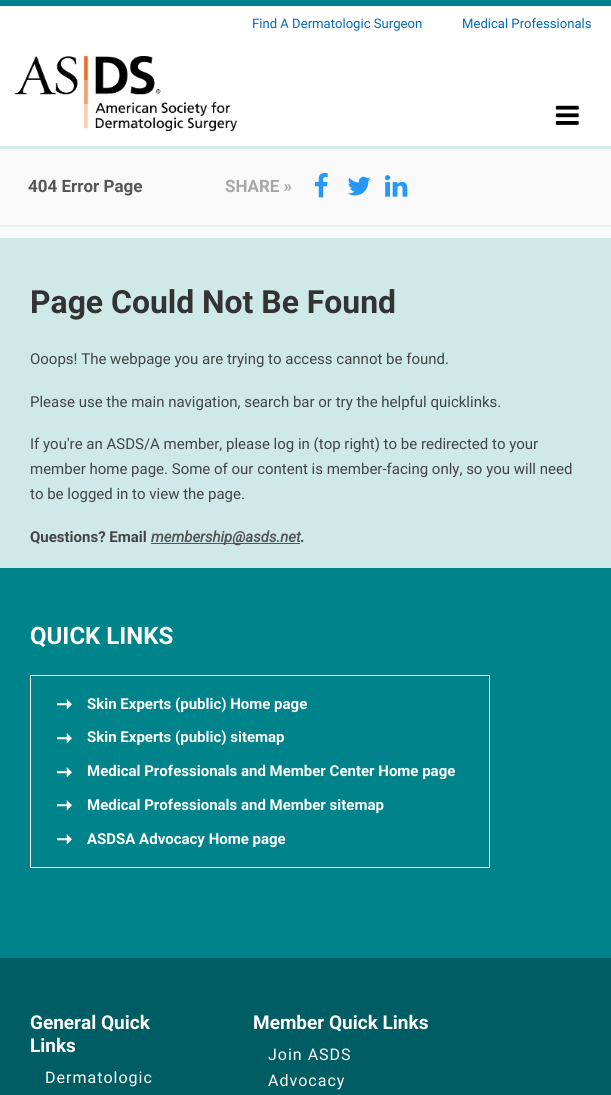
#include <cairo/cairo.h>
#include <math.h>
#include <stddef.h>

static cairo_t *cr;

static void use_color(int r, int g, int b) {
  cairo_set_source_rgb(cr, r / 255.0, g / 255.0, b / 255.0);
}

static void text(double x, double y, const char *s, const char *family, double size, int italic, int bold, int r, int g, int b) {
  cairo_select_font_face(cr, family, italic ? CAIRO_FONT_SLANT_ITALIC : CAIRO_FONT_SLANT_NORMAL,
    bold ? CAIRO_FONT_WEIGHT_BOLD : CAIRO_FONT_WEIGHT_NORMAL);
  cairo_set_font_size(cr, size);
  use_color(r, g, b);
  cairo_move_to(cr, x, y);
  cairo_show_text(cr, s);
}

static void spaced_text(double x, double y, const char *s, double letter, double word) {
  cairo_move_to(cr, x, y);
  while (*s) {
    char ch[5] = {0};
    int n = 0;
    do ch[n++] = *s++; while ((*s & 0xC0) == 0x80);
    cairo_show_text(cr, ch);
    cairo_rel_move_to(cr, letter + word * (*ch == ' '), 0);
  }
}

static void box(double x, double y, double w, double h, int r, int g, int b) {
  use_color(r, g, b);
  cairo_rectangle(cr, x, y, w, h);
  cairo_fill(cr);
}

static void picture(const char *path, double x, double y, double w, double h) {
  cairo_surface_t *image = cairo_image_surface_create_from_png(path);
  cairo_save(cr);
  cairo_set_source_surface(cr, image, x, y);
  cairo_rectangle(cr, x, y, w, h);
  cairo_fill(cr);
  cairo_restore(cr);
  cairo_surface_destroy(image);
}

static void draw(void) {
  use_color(249, 249, 249);
  cairo_paint(cr);
  box(0, 6, 611, 140, 255, 255, 255);
  box(0, 0, 611, 6, 0, 131, 139);
  box(0, 146, 611, 3, 207, 233, 232);
  picture("img_01.png", 15, 56, 222, 75);
  picture("img_02.png", 555, 105, 24, 20);
  box(0, 225, 611, 2, 237, 237, 237);
  picture("img_03.png", 315, 173, 13, 25);
  picture("img_04.png", 347, 176, 24, 20);
  picture("img_05.png", 384, 175, 24, 22);
  box(0, 238, 611, 330, 207, 233, 232);
  box(151, 543, 149, 1, 85, 85, 85);
  box(0, 568, 611, 390, 0, 131, 139);
  cairo_rectangle(cr, 30.5, 675.5, 459, 192);
  use_color(255, 255, 255);
  cairo_set_line_width(cr, 1);
  cairo_stroke(cr);
  picture("img_06.png", 57, 699, 15, 11);
  picture("img_06.png", 57, 733, 15, 11);
  picture("img_06.png", 57, 767, 15, 11);
  picture("img_06.png", 57, 800, 15, 11);
  picture("img_06.png", 57, 834, 15, 11);
  box(0, 958, 611, 137, 0, 93, 99);
  text(252, 28, "Find A Dermatologic Surgeon", "Roboto", 13.1, 0, 0, 0, 106, 187);
  text(462, 28, "Medical Professionals", "Roboto", 13.1, 0, 0, 0, 106, 187);
  text(28, 192, "404 Error Page", "Roboto", 17, 0, 1, 85, 85, 85);
  text(225, 192, "SHARE »", "Roboto", 17, 0, 1, 167, 167, 167);
  text(30, 313, "Page Could Not Be Found", "Roboto", 31.9, 0, 1, 51, 51, 51);
  text(30, 364, "Ooops! The webpage you are trying to access cannot be found.", "Roboto", 15, 0, 0, 68, 68, 68);
  text(30, 407, "Please use the main navigation, search bar or try the helpful quicklinks.", "Roboto", 15, 0, 0, 68, 68, 68);
  text(30, 449, "If you're an ASDS/A member, please log in (top right) to be redirected to your", "Roboto", 15, 0, 0, 68, 68, 68);
  text(30, 474, "member home page. Some of our content is member-facing only, so you will need", "Roboto", 15, 0, 0, 68, 68, 68);
  text(30, 499, "to be logged in to view the page.", "Roboto", 15, 0, 0, 68, 68, 68);
  text(30, 542, "Questions? Email", "Roboto", 15, 0, 1, 68, 68, 68);
  text(151, 542, "membership@asds.net", "Roboto", 15, 1, 1, 85, 85, 85);
  text(300, 542, ".", "Roboto", 15, 0, 1, 68, 68, 68);
  text(30, 644, "QUICK LINKS", "Roboto", 24, 0, 1, 255, 255, 255);
  text(87, 709, "Skin Experts (public) Home page", "Roboto", 15, 0, 1, 255, 255, 255);
  text(87, 742, "Skin Experts (public) sitemap", "Roboto", 15, 0, 1, 255, 255, 255);
  text(87, 776, "Medical Professionals and Member Center Home page", "Roboto", 15, 0, 1, 255, 255, 255);
  text(87, 810, "Medical Professionals and Member sitemap", "Roboto", 15, 0, 1, 255, 255, 255);
  text(87, 844, "ASDSA Advocacy Home page", "Roboto", 15, 0, 1, 255, 255, 255);
  text(30, 1029, "General Quick", "Roboto", 19, 0, 1, 255, 255, 255);
  text(30, 1052, "Links", "Roboto", 19, 0, 1, 255, 255, 255);
  cairo_select_font_face(cr, "Roboto", CAIRO_FONT_SLANT_NORMAL, CAIRO_FONT_WEIGHT_NORMAL);
  cairo_set_font_size(cr, 16);
  spaced_text(45, 1083, "Dermatologic", 1, 0);
  text(253, 1029, "Member Quick Links", "Roboto", 19, 0, 1, 255, 255, 255);
  cairo_select_font_face(cr, "Roboto", CAIRO_FONT_SLANT_NORMAL, CAIRO_FONT_WEIGHT_NORMAL);
  cairo_set_font_size(cr, 16);
  spaced_text(268, 1060, "Join ASDS", 1, 0);
  spaced_text(268, 1086, "Advocacy", 1, 0);
}

int main(void) {
  cairo_surface_t *surface = cairo_image_surface_create(CAIRO_FORMAT_RGB24, 611, 1095);
  cr = cairo_create(surface);
  cairo_font_options_t *options = cairo_font_options_create();
  cairo_font_options_set_hint_metrics(options, CAIRO_HINT_METRICS_OFF);
  cairo_font_options_set_hint_style(options, CAIRO_HINT_STYLE_NONE);
  cairo_set_font_options(cr, options);
  cairo_set_miter_limit(cr, 4);
  draw();
  cairo_surface_write_to_png(surface, "out.png");
  cairo_font_options_destroy(options);
  cairo_destroy(cr);
  cairo_surface_destroy(surface);
  return 0;
}
